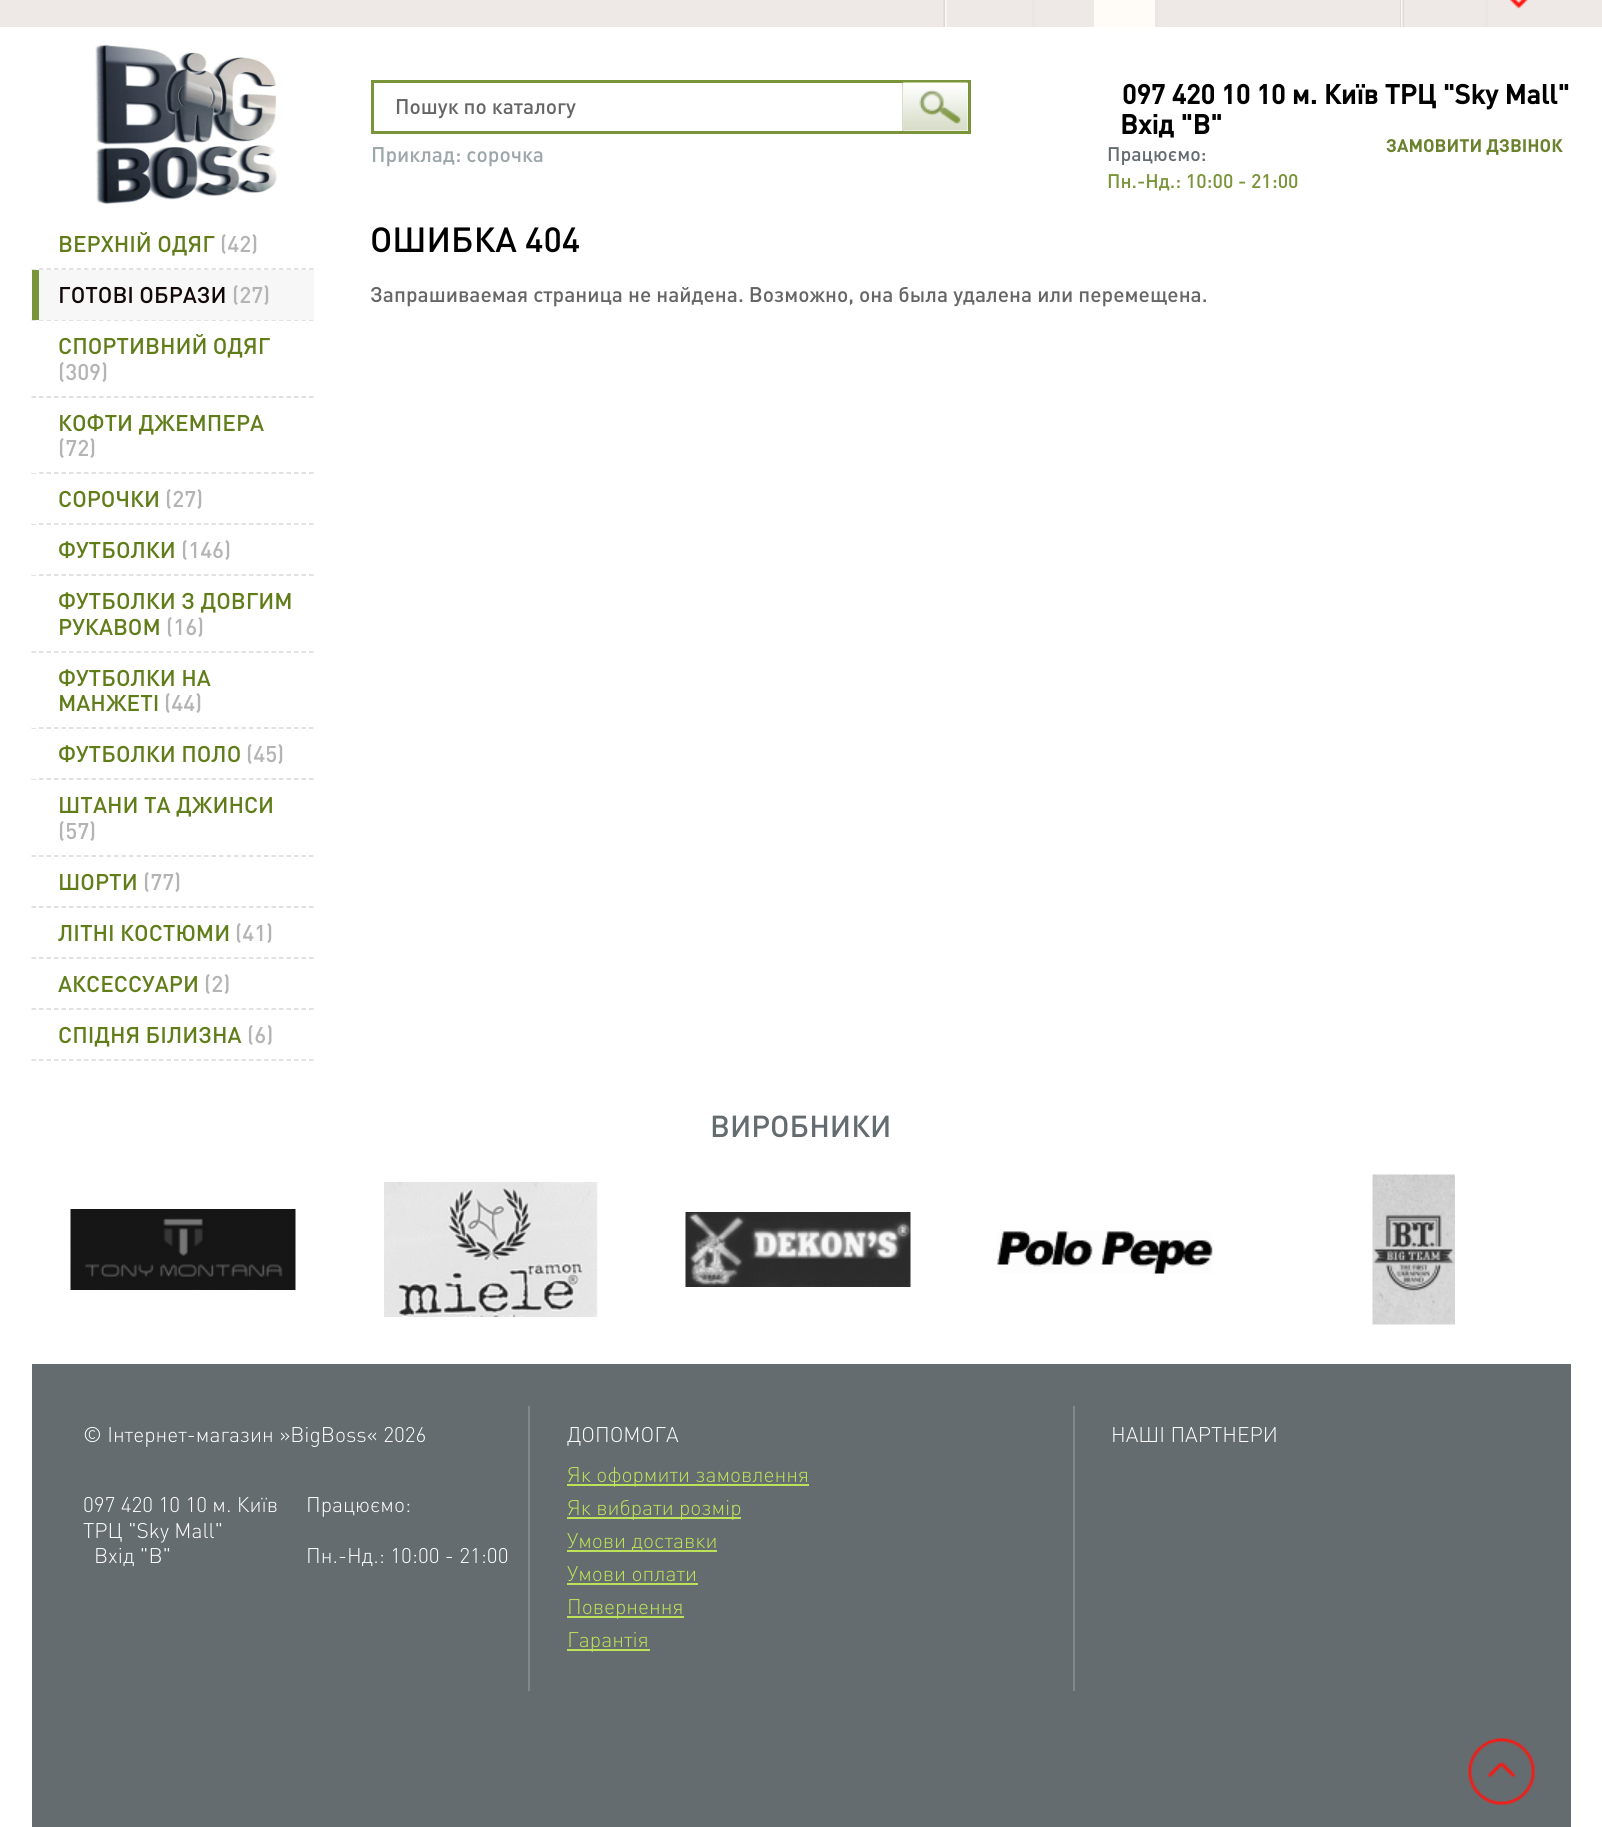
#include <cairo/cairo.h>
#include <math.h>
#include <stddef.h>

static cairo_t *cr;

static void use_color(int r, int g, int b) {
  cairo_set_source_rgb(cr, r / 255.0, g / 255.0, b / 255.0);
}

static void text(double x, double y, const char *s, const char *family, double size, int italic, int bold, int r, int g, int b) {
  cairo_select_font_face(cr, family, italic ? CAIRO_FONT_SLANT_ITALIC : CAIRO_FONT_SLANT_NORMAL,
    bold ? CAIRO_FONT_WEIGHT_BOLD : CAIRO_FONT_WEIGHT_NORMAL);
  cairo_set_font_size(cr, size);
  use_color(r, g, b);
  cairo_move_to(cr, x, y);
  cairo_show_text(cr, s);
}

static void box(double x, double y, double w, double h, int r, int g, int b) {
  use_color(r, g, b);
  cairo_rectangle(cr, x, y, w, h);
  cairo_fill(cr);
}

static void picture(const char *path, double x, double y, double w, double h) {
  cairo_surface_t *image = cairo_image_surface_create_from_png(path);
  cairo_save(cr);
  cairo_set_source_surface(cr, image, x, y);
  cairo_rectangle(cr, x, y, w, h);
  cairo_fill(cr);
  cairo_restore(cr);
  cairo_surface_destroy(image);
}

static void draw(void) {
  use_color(255, 255, 255);
  cairo_paint(cr);
  box(0, 0, 1602, 27, 238, 233, 230);
  picture("img_01.png", 943, 0, 4, 27);
  box(1032, 0, 3, 27, 235, 230, 227);
  box(1094, 0, 61, 27, 255, 251, 247);
  box(1155, 0, 3, 27, 235, 230, 227);
  picture("img_02.png", 1400, 0, 4, 27);
  box(1485, 0, 3, 27, 235, 230, 227);
  picture("img_03.png", 1509, 0, 20, 9);
  picture("img_04.png", 95, 44, 182, 161);
  cairo_rectangle(cr, 372.5, 81.5, 597, 51);
  use_color(122, 148, 57);
  cairo_set_line_width(cr, 3);
  cairo_stroke(cr);
  box(902, 83, 2, 48, 216, 222, 201);
  picture("img_05.png", 903, 82, 65, 49);
  cairo_new_path(cr);
  cairo_move_to(cr, 31.5, 269);
  cairo_line_to(cr, 313.5, 269);
  use_color(217, 217, 217);
  cairo_set_line_width(cr, 1.5);
  cairo_set_dash(cr, (double[]){4.5, 3}, 2, 0);
  cairo_stroke(cr);
  box(32, 268, 4, 1, 255, 255, 255);
  cairo_new_path(cr);
  cairo_move_to(cr, 31.5, 320);
  cairo_line_to(cr, 313.5, 320);
  use_color(217, 217, 217);
  cairo_stroke(cr);
  box(39, 270, 275, 50, 247, 247, 247);
  box(32, 270, 7, 50, 122, 148, 57);
  cairo_new_path(cr);
  cairo_move_to(cr, 31.5, 397);
  cairo_line_to(cr, 313.5, 397);
  use_color(217, 217, 217);
  cairo_stroke(cr);
  cairo_new_path(cr);
  cairo_move_to(cr, 31.5, 473);
  cairo_line_to(cr, 313.5, 473);
  cairo_stroke(cr);
  box(32, 472, 4, 1, 255, 255, 255);
  cairo_new_path(cr);
  cairo_move_to(cr, 31.5, 524);
  cairo_line_to(cr, 313.5, 524);
  use_color(217, 217, 217);
  cairo_stroke(cr);
  box(32, 523, 4, 1, 255, 255, 255);
  cairo_new_path(cr);
  cairo_move_to(cr, 31.5, 575);
  cairo_line_to(cr, 313.5, 575);
  use_color(217, 217, 217);
  cairo_stroke(cr);
  box(32, 574, 4, 1, 255, 255, 255);
  cairo_new_path(cr);
  cairo_move_to(cr, 31.5, 652);
  cairo_line_to(cr, 313.5, 652);
  use_color(217, 217, 217);
  cairo_stroke(cr);
  cairo_new_path(cr);
  cairo_move_to(cr, 31.5, 728);
  cairo_line_to(cr, 313.5, 728);
  cairo_stroke(cr);
  box(32, 727, 4, 1, 255, 255, 255);
  cairo_new_path(cr);
  cairo_move_to(cr, 31.5, 779);
  cairo_line_to(cr, 313.5, 779);
  use_color(217, 217, 217);
  cairo_stroke(cr);
  box(32, 778, 4, 1, 255, 255, 255);
  cairo_new_path(cr);
  cairo_move_to(cr, 31.5, 856);
  cairo_line_to(cr, 313.5, 856);
  use_color(217, 217, 217);
  cairo_stroke(cr);
  cairo_new_path(cr);
  cairo_move_to(cr, 31.5, 907);
  cairo_line_to(cr, 313.5, 907);
  cairo_stroke(cr);
  cairo_new_path(cr);
  cairo_move_to(cr, 31.5, 958);
  cairo_line_to(cr, 313.5, 958);
  cairo_stroke(cr);
  cairo_new_path(cr);
  cairo_move_to(cr, 31.5, 1009);
  cairo_line_to(cr, 313.5, 1009);
  cairo_stroke(cr);
  cairo_new_path(cr);
  cairo_move_to(cr, 31.5, 1060);
  cairo_line_to(cr, 313.5, 1060);
  cairo_stroke(cr);
  picture("img_06.png", 70, 1209, 226, 81);
  picture("img_07.png", 384, 1182, 214, 135);
  picture("img_08.png", 685, 1212, 226, 75);
  picture("img_09.png", 997, 1231, 216, 43);
  picture("img_10.png", 1372, 1174, 83, 151);
  box(32, 1364, 1539, 463, 100, 108, 111);
  box(528, 1406, 2, 285, 128, 137, 140);
  box(567, 1484, 242, 2, 187, 226, 89);
  box(567, 1517, 174, 2, 187, 226, 89);
  box(567, 1550, 150, 2, 187, 226, 89);
  box(567, 1583, 131, 2, 187, 226, 89);
  box(567, 1616, 117, 2, 187, 226, 89);
  box(567, 1649, 83, 2, 187, 226, 89);
  box(1073, 1406, 2, 285, 128, 137, 140);
  picture("img_11.png", 1468, 1738, 67, 67);
  text(395, 114, "Пошук по каталогу", "DIN Medium", 21, 0, 0, 102, 102, 102);
  text(371, 162, "Приклад: сорочка", "DIN Medium", 21, 0, 0, 157, 166, 169);
  text(1122, 104, "097 420 10 10 м. Київ ТРЦ \"Sky Mall\"", "DIN", 27, 0, 1, 0, 0, 0);
  text(1120, 134, "Вхід \"В\"", "DIN", 27, 0, 1, 0, 0, 0);
  text(1107, 161, "Працюємо:", "DIN Medium", 19.5, 0, 0, 100, 108, 111);
  text(1386, 152, "ЗАМОВИТИ ДЗВІНОК", "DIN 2", 18, 0, 1, 106, 130, 45);
  text(1107, 188, "Пн.-Нд.: 10:00 - 21:00", "DIN Medium", 19.5, 0, 0, 122, 148, 57);
  text(58, 252, "ВЕРХНІЙ ОДЯГ", "DIN Medium", 22.5, 0, 0, 96, 125, 25);
  text(220, 252, "(42)", "DIN Medium", 22.5, 0, 0, 180, 180, 180);
  text(58, 303, "ГОТОВІ ОБРАЗИ", "DIN Medium", 22.5, 0, 0, 18, 8, 7);
  text(232, 303, "(27)", "DIN Medium", 22.5, 0, 0, 180, 180, 180);
  text(58, 354, "СПОРТИВНИЙ ОДЯГ", "DIN Medium", 22.5, 0, 0, 96, 125, 25);
  text(58, 380, "(309)", "DIN Medium", 22.5, 0, 0, 180, 180, 180);
  text(58, 431, "КОФТИ ДЖЕМПЕРА", "DIN Medium", 22.5, 0, 0, 96, 125, 25);
  text(58, 456, "(72)", "DIN Medium", 22.5, 0, 0, 180, 180, 180);
  text(58, 507, "СОРОЧКИ", "DIN Medium", 22.5, 0, 0, 96, 125, 25);
  text(165, 507, "(27)", "DIN Medium", 22.5, 0, 0, 180, 180, 180);
  text(58, 558, "ФУТБОЛКИ", "DIN Medium", 22.5, 0, 0, 96, 125, 25);
  text(181, 558, "(146)", "DIN Medium", 22.5, 0, 0, 180, 180, 180);
  text(58, 609, "ФУТБОЛКИ З ДОВГИМ", "DIN Medium", 22.5, 0, 0, 96, 125, 25);
  text(58, 635, "РУКАВОМ", "DIN Medium", 22.5, 0, 0, 96, 125, 25);
  text(166, 635, "(16)", "DIN Medium", 22.5, 0, 0, 180, 180, 180);
  text(58, 686, "ФУТБОЛКИ НА", "DIN Medium", 22.5, 0, 0, 96, 125, 25);
  text(58, 711, "МАНЖЕТІ", "DIN Medium", 22.5, 0, 0, 96, 125, 25);
  text(164, 711, "(44)", "DIN Medium", 22.5, 0, 0, 180, 180, 180);
  text(58, 762, "ФУТБОЛКИ ПОЛО", "DIN Medium", 22.5, 0, 0, 96, 125, 25);
  text(246, 762, "(45)", "DIN Medium", 22.5, 0, 0, 180, 180, 180);
  text(58, 813, "ШТАНИ ТА ДЖИНСИ", "DIN Medium", 22.5, 0, 0, 96, 125, 25);
  text(58, 839, "(57)", "DIN Medium", 22.5, 0, 0, 180, 180, 180);
  text(58, 890, "ШОРТИ", "DIN Medium", 22.5, 0, 0, 96, 125, 25);
  text(143, 890, "(77)", "DIN Medium", 22.5, 0, 0, 180, 180, 180);
  text(58, 941, "ЛІТНІ КОСТЮМИ", "DIN Medium", 22.5, 0, 0, 96, 125, 25);
  text(235, 941, "(41)", "DIN Medium", 22.5, 0, 0, 180, 180, 180);
  text(58, 992, "АКСЕССУАРИ", "DIN Medium", 22.5, 0, 0, 96, 125, 25);
  text(204, 992, "(2)", "DIN Medium", 22.5, 0, 0, 180, 180, 180);
  text(58, 1043, "СПІДНЯ БІЛИЗНА", "DIN Medium", 22.5, 0, 0, 96, 125, 25);
  text(247, 1043, "(6)", "DIN Medium", 22.5, 0, 0, 180, 180, 180);
  text(370, 252, "ОШИБКА 404", "DIN Medium", 34.5, 0, 0, 0, 0, 0);
  text(370, 302, "Запрашиваемая страница не найдена. Возможно, она была удалена или перемещена.", "DIN Medium", 21, 0, 0, 102, 102, 102);
  text(710, 1137, "ВИРОБНИКИ", "DIN Medium", 30, 0, 0, 100, 108, 111);
  text(83, 1442, "© Інтернет-магазин »BigBoss« 2026", "DIN Light", 21, 0, 0, 254, 254, 254);
  text(83, 1512, "097 420 10 10 м. Київ", "DIN Light", 21, 0, 0, 254, 254, 254);
  text(83, 1538, "ТРЦ \"Sky Mall\"", "DIN Light", 21, 0, 0, 254, 254, 254);
  text(94, 1563, "Вхід \"В\"", "DIN Light", 21, 0, 0, 254, 254, 254);
  text(306, 1512, "Працюємо:", "DIN Light", 21, 0, 0, 254, 254, 254);
  text(306, 1563, "Пн.-Нд.: 10:00 - 21:00", "DIN Light", 21, 0, 0, 254, 254, 254);
  text(567, 1442, "ДОПОМОГА", "DIN Light", 21, 0, 0, 254, 254, 254);
  text(567, 1482, "Як оформити замовлення", "DIN Light", 21, 0, 0, 187, 226, 89);
  text(567, 1515, "Як вибрати розмір", "DIN Light", 21, 0, 0, 187, 226, 89);
  text(567, 1548, "Умови доставки", "DIN Light", 21, 0, 0, 187, 226, 89);
  text(567, 1581, "Умови оплати", "DIN Light", 21, 0, 0, 187, 226, 89);
  text(567, 1614, "Повернення", "DIN Light", 21, 0, 0, 187, 226, 89);
  text(567, 1647, "Гарантія", "DIN Light", 21, 0, 0, 187, 226, 89);
  text(1111, 1442, "НАШІ ПАРТНЕРИ", "DIN Light", 21, 0, 0, 254, 254, 254);
}

int main(void) {
  cairo_surface_t *surface = cairo_image_surface_create(CAIRO_FORMAT_RGB24, 1602, 1827);
  cr = cairo_create(surface);
  cairo_font_options_t *options = cairo_font_options_create();
  cairo_font_options_set_hint_metrics(options, CAIRO_HINT_METRICS_OFF);
  cairo_font_options_set_hint_style(options, CAIRO_HINT_STYLE_NONE);
  cairo_set_font_options(cr, options);
  cairo_set_miter_limit(cr, 4);
  draw();
  cairo_surface_write_to_png(surface, "out.png");
  cairo_font_options_destroy(options);
  cairo_destroy(cr);
  cairo_surface_destroy(surface);
  return 0;
}
